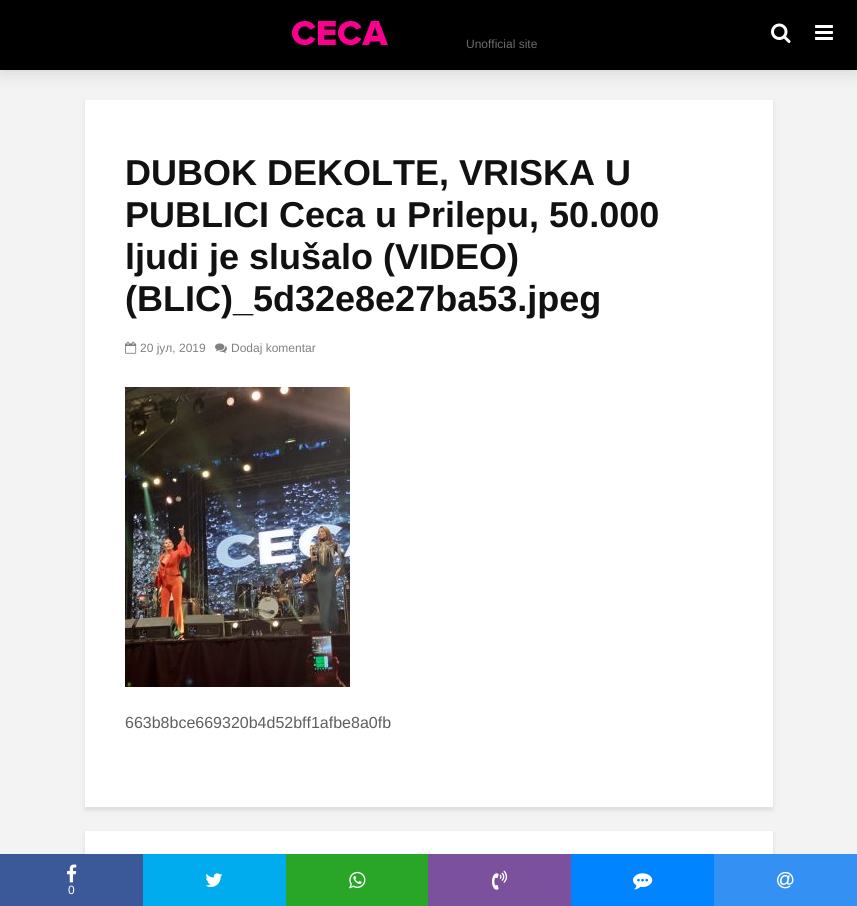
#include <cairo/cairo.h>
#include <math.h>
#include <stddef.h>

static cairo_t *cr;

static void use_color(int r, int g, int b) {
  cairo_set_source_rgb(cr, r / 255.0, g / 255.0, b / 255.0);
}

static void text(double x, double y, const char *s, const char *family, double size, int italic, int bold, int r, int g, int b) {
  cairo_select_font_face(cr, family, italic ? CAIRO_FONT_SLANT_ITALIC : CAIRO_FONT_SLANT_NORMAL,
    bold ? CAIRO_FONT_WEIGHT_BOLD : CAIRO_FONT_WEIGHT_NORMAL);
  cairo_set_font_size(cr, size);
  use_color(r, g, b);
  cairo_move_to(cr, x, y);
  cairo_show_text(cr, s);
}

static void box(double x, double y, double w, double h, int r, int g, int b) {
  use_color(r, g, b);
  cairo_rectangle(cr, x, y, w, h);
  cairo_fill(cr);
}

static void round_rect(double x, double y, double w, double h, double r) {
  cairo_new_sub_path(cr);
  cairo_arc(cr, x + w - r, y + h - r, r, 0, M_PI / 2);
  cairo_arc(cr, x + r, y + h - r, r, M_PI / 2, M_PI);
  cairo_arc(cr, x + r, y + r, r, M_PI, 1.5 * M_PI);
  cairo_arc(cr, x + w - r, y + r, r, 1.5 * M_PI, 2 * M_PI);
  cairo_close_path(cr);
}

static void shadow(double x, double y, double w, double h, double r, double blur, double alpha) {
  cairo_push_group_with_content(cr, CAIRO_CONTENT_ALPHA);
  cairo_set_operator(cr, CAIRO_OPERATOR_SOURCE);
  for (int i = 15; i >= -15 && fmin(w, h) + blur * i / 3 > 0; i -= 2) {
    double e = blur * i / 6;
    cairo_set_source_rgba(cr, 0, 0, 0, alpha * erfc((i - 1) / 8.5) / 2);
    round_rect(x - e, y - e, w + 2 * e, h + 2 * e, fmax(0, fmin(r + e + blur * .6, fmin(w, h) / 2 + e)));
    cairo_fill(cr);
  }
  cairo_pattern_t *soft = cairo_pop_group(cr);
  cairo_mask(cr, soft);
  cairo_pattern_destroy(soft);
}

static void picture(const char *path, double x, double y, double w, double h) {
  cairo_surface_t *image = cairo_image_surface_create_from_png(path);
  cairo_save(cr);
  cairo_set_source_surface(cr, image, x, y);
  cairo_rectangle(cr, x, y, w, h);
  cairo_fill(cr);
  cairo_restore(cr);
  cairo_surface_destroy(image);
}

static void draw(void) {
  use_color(243, 243, 243);
  cairo_paint(cr);
  use_color(0, 1, 1);
  shadow(85, 103, 688, 707, 0, 2.5, 0.1);
  box(85, 100, 688, 707, 255, 255, 255);
  use_color(0, 0, 0);
  shadow(0, 0, 857, 70, 0, 10, 0.15);
  box(0, 0, 857, 70, 0, 0, 0);
  picture("img_01.png", 771, 23, 20, 20);
  picture("img_02.png", 815, 25, 18, 15);
  picture("img_03.png", 292, 21, 96, 24);
  picture("img_04.png", 125, 341, 12, 13);
  picture("img_05.png", 215, 343, 12, 10);
  picture("img_06.png", 125, 387, 225, 300);
  use_color(0, 1, 1);
  shadow(85, 834, 688, 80, 0, 2.5, 0.1);
  box(85, 831, 688, 23, 255, 255, 255);
  box(0, 854, 143, 52, 59, 89, 152);
  picture("img_07.png", 67, 864, 10, 19);
  box(143, 854, 143, 52, 0, 172, 237);
  picture("img_08.png", 205, 873, 18, 14);
  box(286, 854, 142, 52, 41, 166, 40);
  picture("img_09.png", 349, 871, 17, 18);
  box(428, 854, 143, 52, 123, 81, 157);
  picture("img_10.png", 492, 870, 16, 20);
  box(571, 854, 143, 52, 0, 132, 255);
  picture("img_11.png", 633, 873, 20, 17);
  box(714, 854, 143, 52, 52, 144, 243);
  picture("img_12.png", 777, 871, 17, 18);
  text(466, 48, "Unofficial site", "Liberation Sans", 12, 0, 0, 107, 107, 107);
  text(125, 185, "DUBOK DEKOLTE, VRISKA U", "Liberation Sans", 36, 0, 1, 17, 17, 17);
  text(125, 227, "PUBLICI Ceca u Prilepu, 50.000", "Liberation Sans", 36, 0, 1, 17, 17, 17);
  text(125, 269, "ljudi je slušalo (VIDEO)", "Liberation Sans", 36, 0, 1, 17, 17, 17);
  text(125, 311, "(BLIC)_5d32e8e27ba53.jpeg", "Liberation Sans", 36, 0, 1, 17, 17, 17);
  text(140, 352, "20 јул, 2019", "Liberation Sans", 12, 0, 0, 129, 129, 129);
  text(231, 352, "Dodaj komentar", "Liberation Sans", 12, 0, 0, 129, 129, 129);
  text(125, 728, "663b8bce669320b4d52bff1afbe8a0fb", "Liberation Sans", 16, 0, 0, 94, 94, 94);
  text(68, 894, "0", "Liberation Sans", 12, 0, 0, 255, 255, 255);
}

int main(void) {
  cairo_surface_t *surface = cairo_image_surface_create(CAIRO_FORMAT_RGB24, 857, 906);
  cr = cairo_create(surface);
  cairo_font_options_t *options = cairo_font_options_create();
  cairo_font_options_set_hint_metrics(options, CAIRO_HINT_METRICS_OFF);
  cairo_font_options_set_hint_style(options, CAIRO_HINT_STYLE_NONE);
  cairo_set_font_options(cr, options);
  cairo_set_miter_limit(cr, 4);
  draw();
  cairo_surface_write_to_png(surface, "out.png");
  cairo_font_options_destroy(options);
  cairo_destroy(cr);
  cairo_surface_destroy(surface);
  return 0;
}
